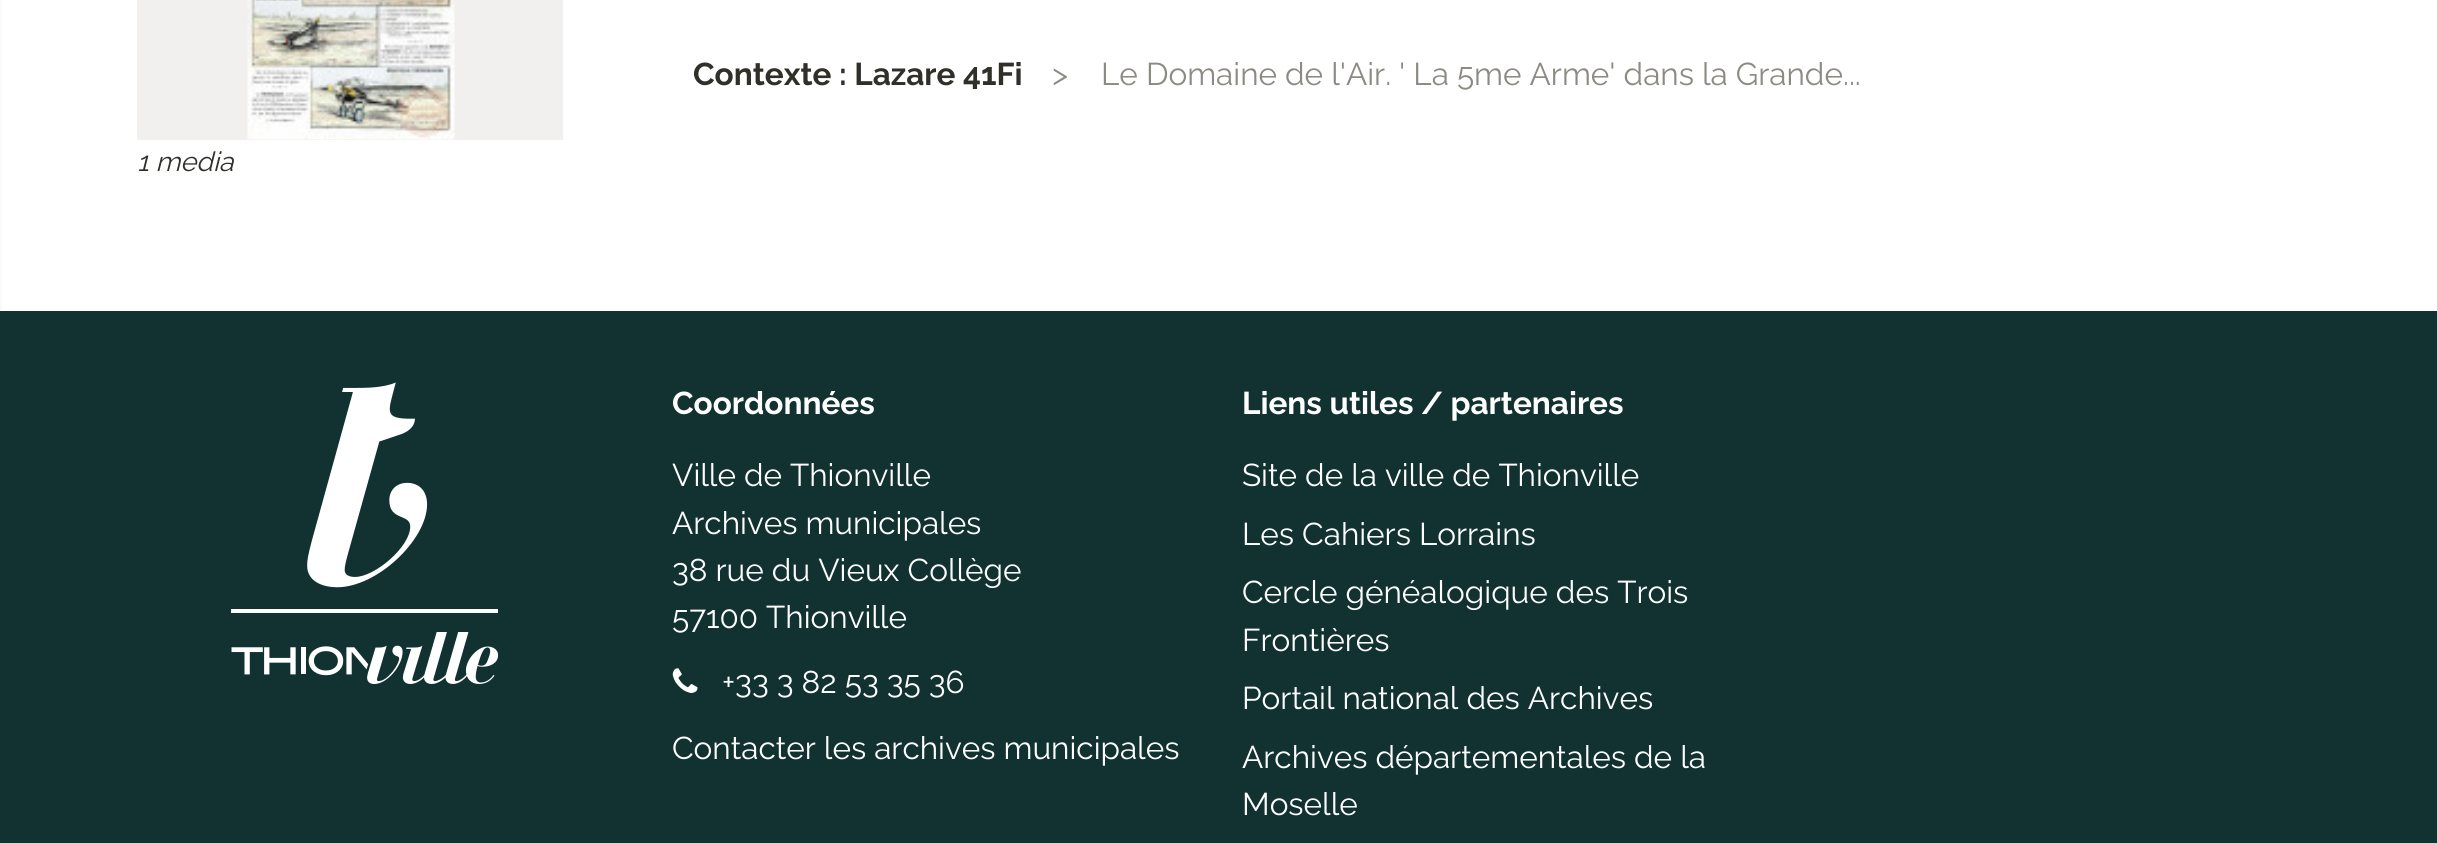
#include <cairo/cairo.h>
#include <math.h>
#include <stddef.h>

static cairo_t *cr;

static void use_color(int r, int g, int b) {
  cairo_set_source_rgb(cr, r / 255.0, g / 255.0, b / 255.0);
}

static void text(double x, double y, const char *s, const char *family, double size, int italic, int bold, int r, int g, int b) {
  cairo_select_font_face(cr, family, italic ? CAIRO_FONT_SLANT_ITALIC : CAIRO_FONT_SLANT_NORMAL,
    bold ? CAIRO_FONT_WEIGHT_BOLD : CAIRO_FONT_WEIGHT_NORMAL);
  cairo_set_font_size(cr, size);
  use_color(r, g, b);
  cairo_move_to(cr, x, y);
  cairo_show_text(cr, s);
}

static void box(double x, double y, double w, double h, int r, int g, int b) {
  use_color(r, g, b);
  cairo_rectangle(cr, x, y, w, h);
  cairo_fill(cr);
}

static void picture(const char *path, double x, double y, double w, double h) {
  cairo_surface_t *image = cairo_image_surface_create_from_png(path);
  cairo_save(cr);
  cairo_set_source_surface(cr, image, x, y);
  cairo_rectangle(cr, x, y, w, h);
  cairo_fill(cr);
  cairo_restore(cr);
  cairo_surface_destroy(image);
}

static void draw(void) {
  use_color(255, 255, 255);
  cairo_paint(cr);
  box(0, 0, 2, 311, 250, 250, 250);
  box(137, 0, 426, 140, 241, 240, 239);
  picture("img_01.png", 247, 0, 208, 140);
  box(0, 311, 2437, 532, 18, 50, 50);
  picture("img_02.png", 231, 382, 268, 302);
  picture("img_03.png", 672, 668, 26, 25);
  text(693, 85, "Contexte : Lazare 41Fi", "Raleway", 31.5, 0, 1, 48, 47, 41);
  text(1052, 85, ">", "Raleway", 31.5, 0, 0, 140, 138, 131);
  text(1101, 85, "Le Domaine de l'Air. ' La 5me Arme' dans la Grande...", "Raleway", 31.5, 0, 0, 140, 138, 131);
  text(137, 171, "1 media", "Raleway", 27, 1, 0, 48, 47, 41);
  text(672, 414, "Coordonnées", "Raleway", 31.5, 0, 1, 255, 255, 255);
  text(672, 486, "Ville de Thionville", "Raleway", 31.5, 0, 0, 255, 255, 255);
  text(672, 534, "Archives municipales", "Raleway", 31.5, 0, 0, 255, 255, 255);
  text(672, 581, "38 rue du Vieux Collège", "Raleway", 31.5, 0, 0, 255, 255, 255);
  text(672, 628, "57100 Thionville", "Raleway", 31.5, 0, 0, 255, 255, 255);
  text(722, 693, "+33 3 82 53 35 36", "Raleway", 31.5, 0, 0, 255, 255, 255);
  text(672, 759, "Contacter les archives municipales", "Raleway", 31.5, 0, 0, 255, 255, 255);
  text(1242, 414, "Liens utiles / partenaires", "Raleway", 31.5, 0, 1, 255, 255, 255);
  text(1242, 486, "Site de la ville de Thionville", "Raleway", 31.5, 0, 0, 255, 255, 255);
  text(1242, 545, "Les Cahiers Lorrains", "Raleway", 31.5, 0, 0, 255, 255, 255);
  text(1242, 603, "Cercle généalogique des Trois", "Raleway", 31.5, 0, 0, 255, 255, 255);
  text(1242, 651, "Frontières", "Raleway", 31.5, 0, 0, 255, 255, 255);
  text(1242, 709, "Portail national des Archives", "Raleway", 31.5, 0, 0, 255, 255, 255);
  text(1242, 768, "Archives départementales de la", "Raleway", 31.5, 0, 0, 255, 255, 255);
  text(1242, 815, "Moselle", "Raleway", 31.5, 0, 0, 255, 255, 255);
}

int main(void) {
  cairo_surface_t *surface = cairo_image_surface_create(CAIRO_FORMAT_RGB24, 2437, 843);
  cr = cairo_create(surface);
  cairo_font_options_t *options = cairo_font_options_create();
  cairo_font_options_set_hint_metrics(options, CAIRO_HINT_METRICS_OFF);
  cairo_font_options_set_hint_style(options, CAIRO_HINT_STYLE_NONE);
  cairo_set_font_options(cr, options);
  cairo_set_miter_limit(cr, 4);
  draw();
  cairo_surface_write_to_png(surface, "out.png");
  cairo_font_options_destroy(options);
  cairo_destroy(cr);
  cairo_surface_destroy(surface);
  return 0;
}
